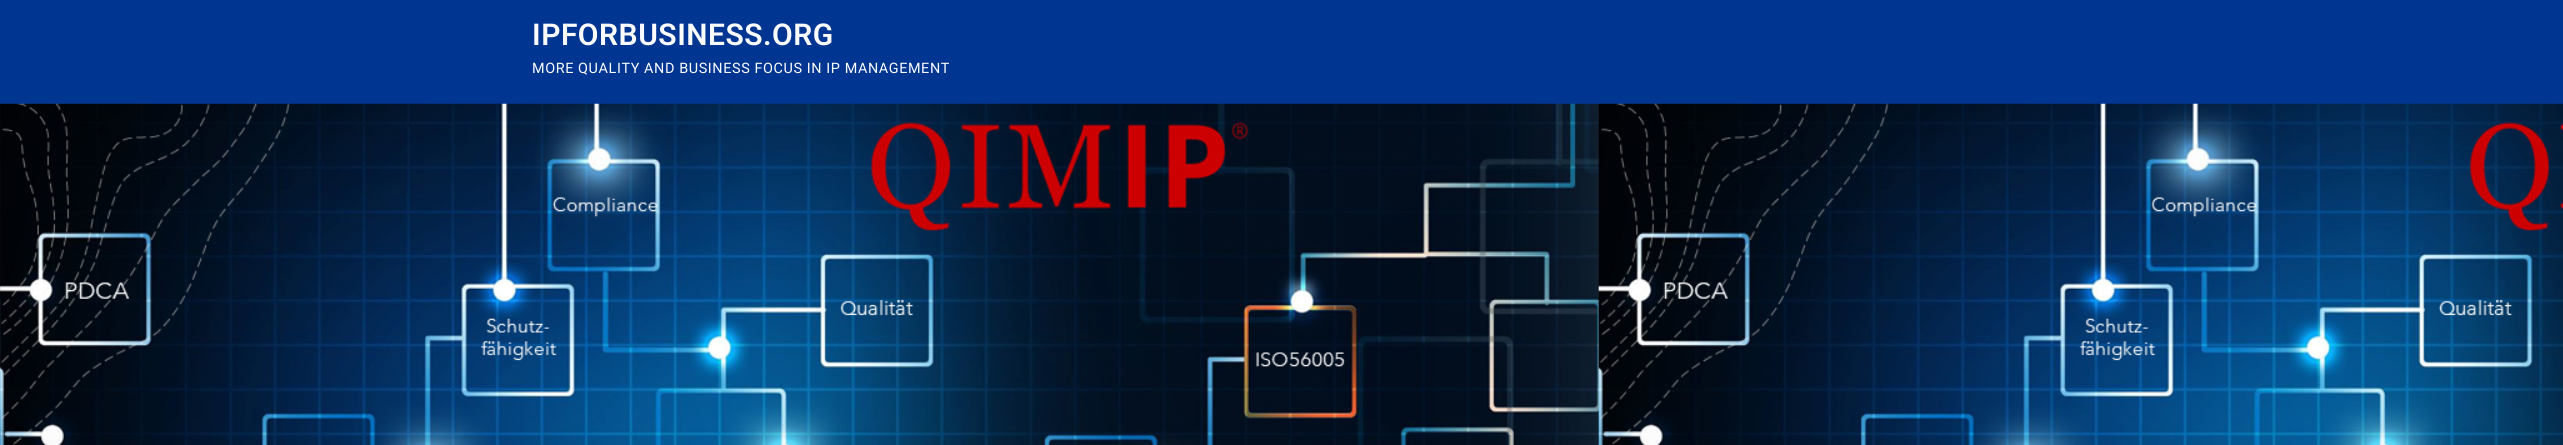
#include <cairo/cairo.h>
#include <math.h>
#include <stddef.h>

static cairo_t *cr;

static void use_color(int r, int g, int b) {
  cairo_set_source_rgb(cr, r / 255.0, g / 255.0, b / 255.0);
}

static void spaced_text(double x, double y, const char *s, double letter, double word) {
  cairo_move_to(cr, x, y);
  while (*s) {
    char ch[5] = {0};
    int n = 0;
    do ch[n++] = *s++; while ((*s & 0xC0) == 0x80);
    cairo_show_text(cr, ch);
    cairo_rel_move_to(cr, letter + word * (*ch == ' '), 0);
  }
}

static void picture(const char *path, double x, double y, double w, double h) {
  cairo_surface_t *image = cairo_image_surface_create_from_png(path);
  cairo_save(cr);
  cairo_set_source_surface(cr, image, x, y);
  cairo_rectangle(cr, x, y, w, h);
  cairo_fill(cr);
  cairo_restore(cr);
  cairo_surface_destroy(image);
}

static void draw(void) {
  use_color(0, 53, 145);
  cairo_paint(cr);
  picture("img_01.png", 0, 103, 2563, 342);
  cairo_select_font_face(cr, "Roboto SemiBold", CAIRO_FONT_SLANT_NORMAL, CAIRO_FONT_WEIGHT_NORMAL);
  cairo_set_font_size(cr, 30);
  use_color(252, 253, 254);
  spaced_text(532, 45, "IPFORBUSINESS.ORG", 0.5, 0);
  cairo_select_font_face(cr, "Roboto", CAIRO_FONT_SLANT_NORMAL, CAIRO_FONT_WEIGHT_NORMAL);
  cairo_set_font_size(cr, 14.4);
  spaced_text(532, 73, "MORE QUALITY AND BUSINESS FOCUS IN IP MANAGEMENT", 0.6, 0);
}

int main(void) {
  cairo_surface_t *surface = cairo_image_surface_create(CAIRO_FORMAT_RGB24, 2563, 445);
  cr = cairo_create(surface);
  cairo_font_options_t *options = cairo_font_options_create();
  cairo_font_options_set_hint_metrics(options, CAIRO_HINT_METRICS_OFF);
  cairo_font_options_set_hint_style(options, CAIRO_HINT_STYLE_NONE);
  cairo_set_font_options(cr, options);
  cairo_set_miter_limit(cr, 4);
  draw();
  cairo_surface_write_to_png(surface, "out.png");
  cairo_font_options_destroy(options);
  cairo_destroy(cr);
  cairo_surface_destroy(surface);
  return 0;
}
